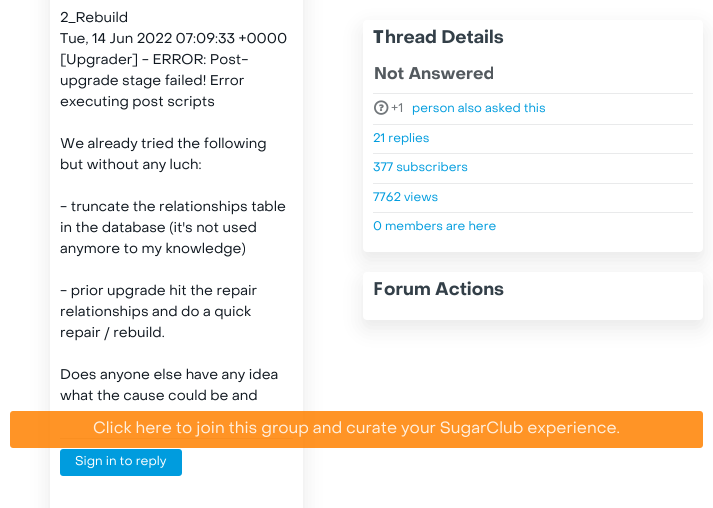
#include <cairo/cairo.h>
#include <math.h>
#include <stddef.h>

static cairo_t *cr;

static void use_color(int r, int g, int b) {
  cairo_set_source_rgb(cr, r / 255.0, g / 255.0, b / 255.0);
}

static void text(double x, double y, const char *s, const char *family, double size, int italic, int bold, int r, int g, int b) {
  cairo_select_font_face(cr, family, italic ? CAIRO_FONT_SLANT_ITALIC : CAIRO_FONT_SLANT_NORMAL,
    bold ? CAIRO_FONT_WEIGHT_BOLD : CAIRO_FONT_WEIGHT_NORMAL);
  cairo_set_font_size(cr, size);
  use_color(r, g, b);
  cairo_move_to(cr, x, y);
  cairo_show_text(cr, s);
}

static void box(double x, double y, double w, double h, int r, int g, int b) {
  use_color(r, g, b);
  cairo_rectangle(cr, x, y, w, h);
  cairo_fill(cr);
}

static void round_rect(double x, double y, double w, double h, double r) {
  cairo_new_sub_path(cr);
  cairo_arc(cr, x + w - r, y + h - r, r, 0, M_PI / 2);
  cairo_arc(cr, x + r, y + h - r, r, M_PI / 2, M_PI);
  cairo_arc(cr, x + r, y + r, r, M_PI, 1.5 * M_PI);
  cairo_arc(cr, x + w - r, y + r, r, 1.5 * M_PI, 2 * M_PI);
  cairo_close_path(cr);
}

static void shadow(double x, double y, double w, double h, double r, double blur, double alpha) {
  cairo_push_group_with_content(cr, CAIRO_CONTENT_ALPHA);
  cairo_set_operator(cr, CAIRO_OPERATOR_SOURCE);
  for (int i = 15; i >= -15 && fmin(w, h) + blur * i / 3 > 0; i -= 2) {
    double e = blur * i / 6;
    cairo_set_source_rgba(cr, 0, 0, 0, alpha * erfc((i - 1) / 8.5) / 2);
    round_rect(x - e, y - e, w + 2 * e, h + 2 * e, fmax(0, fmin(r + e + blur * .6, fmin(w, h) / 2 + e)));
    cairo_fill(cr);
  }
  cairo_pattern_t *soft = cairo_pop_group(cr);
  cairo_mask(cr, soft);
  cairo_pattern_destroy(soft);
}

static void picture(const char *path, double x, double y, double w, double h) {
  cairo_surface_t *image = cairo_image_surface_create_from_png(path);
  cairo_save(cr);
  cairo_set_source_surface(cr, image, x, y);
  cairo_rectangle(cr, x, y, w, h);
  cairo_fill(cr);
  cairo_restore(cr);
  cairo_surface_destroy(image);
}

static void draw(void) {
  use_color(255, 255, 255);
  cairo_paint(cr);
  cairo_save(cr);
  cairo_set_fill_rule(cr, CAIRO_FILL_RULE_EVEN_ODD);
  cairo_new_path(cr);
  cairo_move_to(cr, 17, 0);
  cairo_line_to(cr, 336, 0);
  cairo_line_to(cr, 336, 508);
  cairo_line_to(cr, 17, 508);
  cairo_close_path(cr);
  cairo_move_to(cr, 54, -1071);
  cairo_line_to(cr, 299, -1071);
  cairo_curve_to(cr, 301, -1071, 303, -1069, 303, -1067);
  cairo_line_to(cr, 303, 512);
  cairo_curve_to(cr, 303, 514, 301, 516, 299, 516);
  cairo_line_to(cr, 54, 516);
  cairo_curve_to(cr, 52, 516, 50, 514, 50, 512);
  cairo_line_to(cr, 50, -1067);
  cairo_curve_to(cr, 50, -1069, 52, -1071, 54, -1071);
  cairo_close_path(cr);
  cairo_clip(cr);
  use_color(232, 232, 232);
  shadow(50, -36, 253, 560, 4, 10.5, 1);
  cairo_restore(cr);
  box(60, 438, 233, 1, 219, 220, 222);
  use_color(0, 156, 222);
  round_rect(60, 449, 122, 27, 3);
  cairo_fill(cr);
  use_color(232, 232, 232);
  shadow(363, 28, 340, 232, 4, 10.5, 1);
  use_color(255, 255, 255);
  round_rect(363, 20, 340, 232, 4);
  cairo_fill(cr);
  box(373, 93, 320, 1, 233, 234, 235);
  box(373, 124, 320, 1, 233, 234, 235);
  picture("img_01.png", 374, 100, 15, 15);
  box(373, 153, 320, 1, 233, 234, 235);
  box(373, 183, 320, 1, 233, 234, 235);
  box(373, 212, 320, 1, 233, 234, 235);
  use_color(232, 232, 232);
  shadow(363, 280, 340, 48, 4, 10.5, 1);
  use_color(255, 255, 255);
  round_rect(363, 272, 340, 48, 4);
  cairo_fill(cr);
  cairo_set_source_rgba(cr, 1, 0.51, 0, 0.85);
  round_rect(10, 411, 693, 37, 3);
  cairo_fill(cr);
  text(60, 22, "2_Rebuild", "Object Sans", 14, 0, 0, 16, 24, 32);
  text(60, 43, "Tue, 14 Jun 2022 07:09:33 +0000", "Object Sans", 14, 0, 0, 16, 24, 32);
  text(60, 64, "[Upgrader] - ERROR: Post-", "Object Sans", 14, 0, 0, 16, 24, 32);
  text(60, 85, "upgrade stage failed! Error", "Object Sans", 14, 0, 0, 16, 24, 32);
  text(60, 106, "executing post scripts", "Object Sans", 14, 0, 0, 16, 24, 32);
  text(60, 148, "We already tried the following", "Object Sans", 14, 0, 0, 16, 24, 32);
  text(60, 169, "but without any luch:", "Object Sans", 14, 0, 0, 16, 24, 32);
  text(60, 211, "- truncate the relationships table", "Object Sans", 14, 0, 0, 16, 24, 32);
  text(60, 232, "in the database (it's not used", "Object Sans", 14, 0, 0, 16, 24, 32);
  text(60, 253, "anymore to my knowledge)", "Object Sans", 14, 0, 0, 16, 24, 32);
  text(60, 295, "- prior upgrade hit the repair", "Object Sans", 14, 0, 0, 16, 24, 32);
  text(60, 316, "relationships and do a quick", "Object Sans", 14, 0, 0, 16, 24, 32);
  text(60, 337, "repair / rebuild.", "Object Sans", 14, 0, 0, 16, 24, 32);
  text(60, 379, "Does anyone else have any idea", "Object Sans", 14, 0, 0, 16, 24, 32);
  text(60, 400, "what the cause could be and", "Object Sans", 14, 0, 0, 16, 24, 32);
  text(75, 465, "Sign in to reply", "Object Sans", 12.5, 0, 0, 255, 255, 255);
  text(373, 43, "T", "Noto Sans Black", 18, 0, 0, 51, 63, 72);
  text(385, 43, "hread Details", "Object Sans", 18, 0, 1, 51, 63, 72);
  text(374, 79, "Not Answered", "Object Sans", 16.75, 0, 1, 83, 89, 94);
  text(391, 112, "+1", "Object Sans", 12.5, 0, 0, 114, 119, 123);
  text(412, 112, "person also asked this", "Object Sans", 12.25, 0, 0, 0, 156, 222);
  text(373, 142, "21 replies", "Object Sans", 12.25, 0, 0, 0, 156, 222);
  text(373, 171, "377 subscribers", "Object Sans", 12.25, 0, 0, 0, 156, 222);
  text(373, 201, "7762 views", "Object Sans", 12.25, 0, 0, 0, 156, 222);
  text(373, 230, "0 members are here", "Object Sans", 12.25, 0, 0, 0, 156, 222);
  text(373, 295, "F", "Noto Sans", 18, 0, 1, 51, 63, 72);
  text(384, 295, "orum Actions", "Object Sans", 18, 0, 1, 51, 63, 72);
  text(93, 433, "Click here to join this group and curate your SugarClub experience.", "Object Sans", 16, 0, 0, 255, 239, 222);
}

int main(void) {
  cairo_surface_t *surface = cairo_image_surface_create(CAIRO_FORMAT_RGB24, 713, 508);
  cr = cairo_create(surface);
  cairo_font_options_t *options = cairo_font_options_create();
  cairo_font_options_set_hint_metrics(options, CAIRO_HINT_METRICS_OFF);
  cairo_font_options_set_hint_style(options, CAIRO_HINT_STYLE_NONE);
  cairo_set_font_options(cr, options);
  cairo_set_miter_limit(cr, 4);
  draw();
  cairo_surface_write_to_png(surface, "out.png");
  cairo_font_options_destroy(options);
  cairo_destroy(cr);
  cairo_surface_destroy(surface);
  return 0;
}
